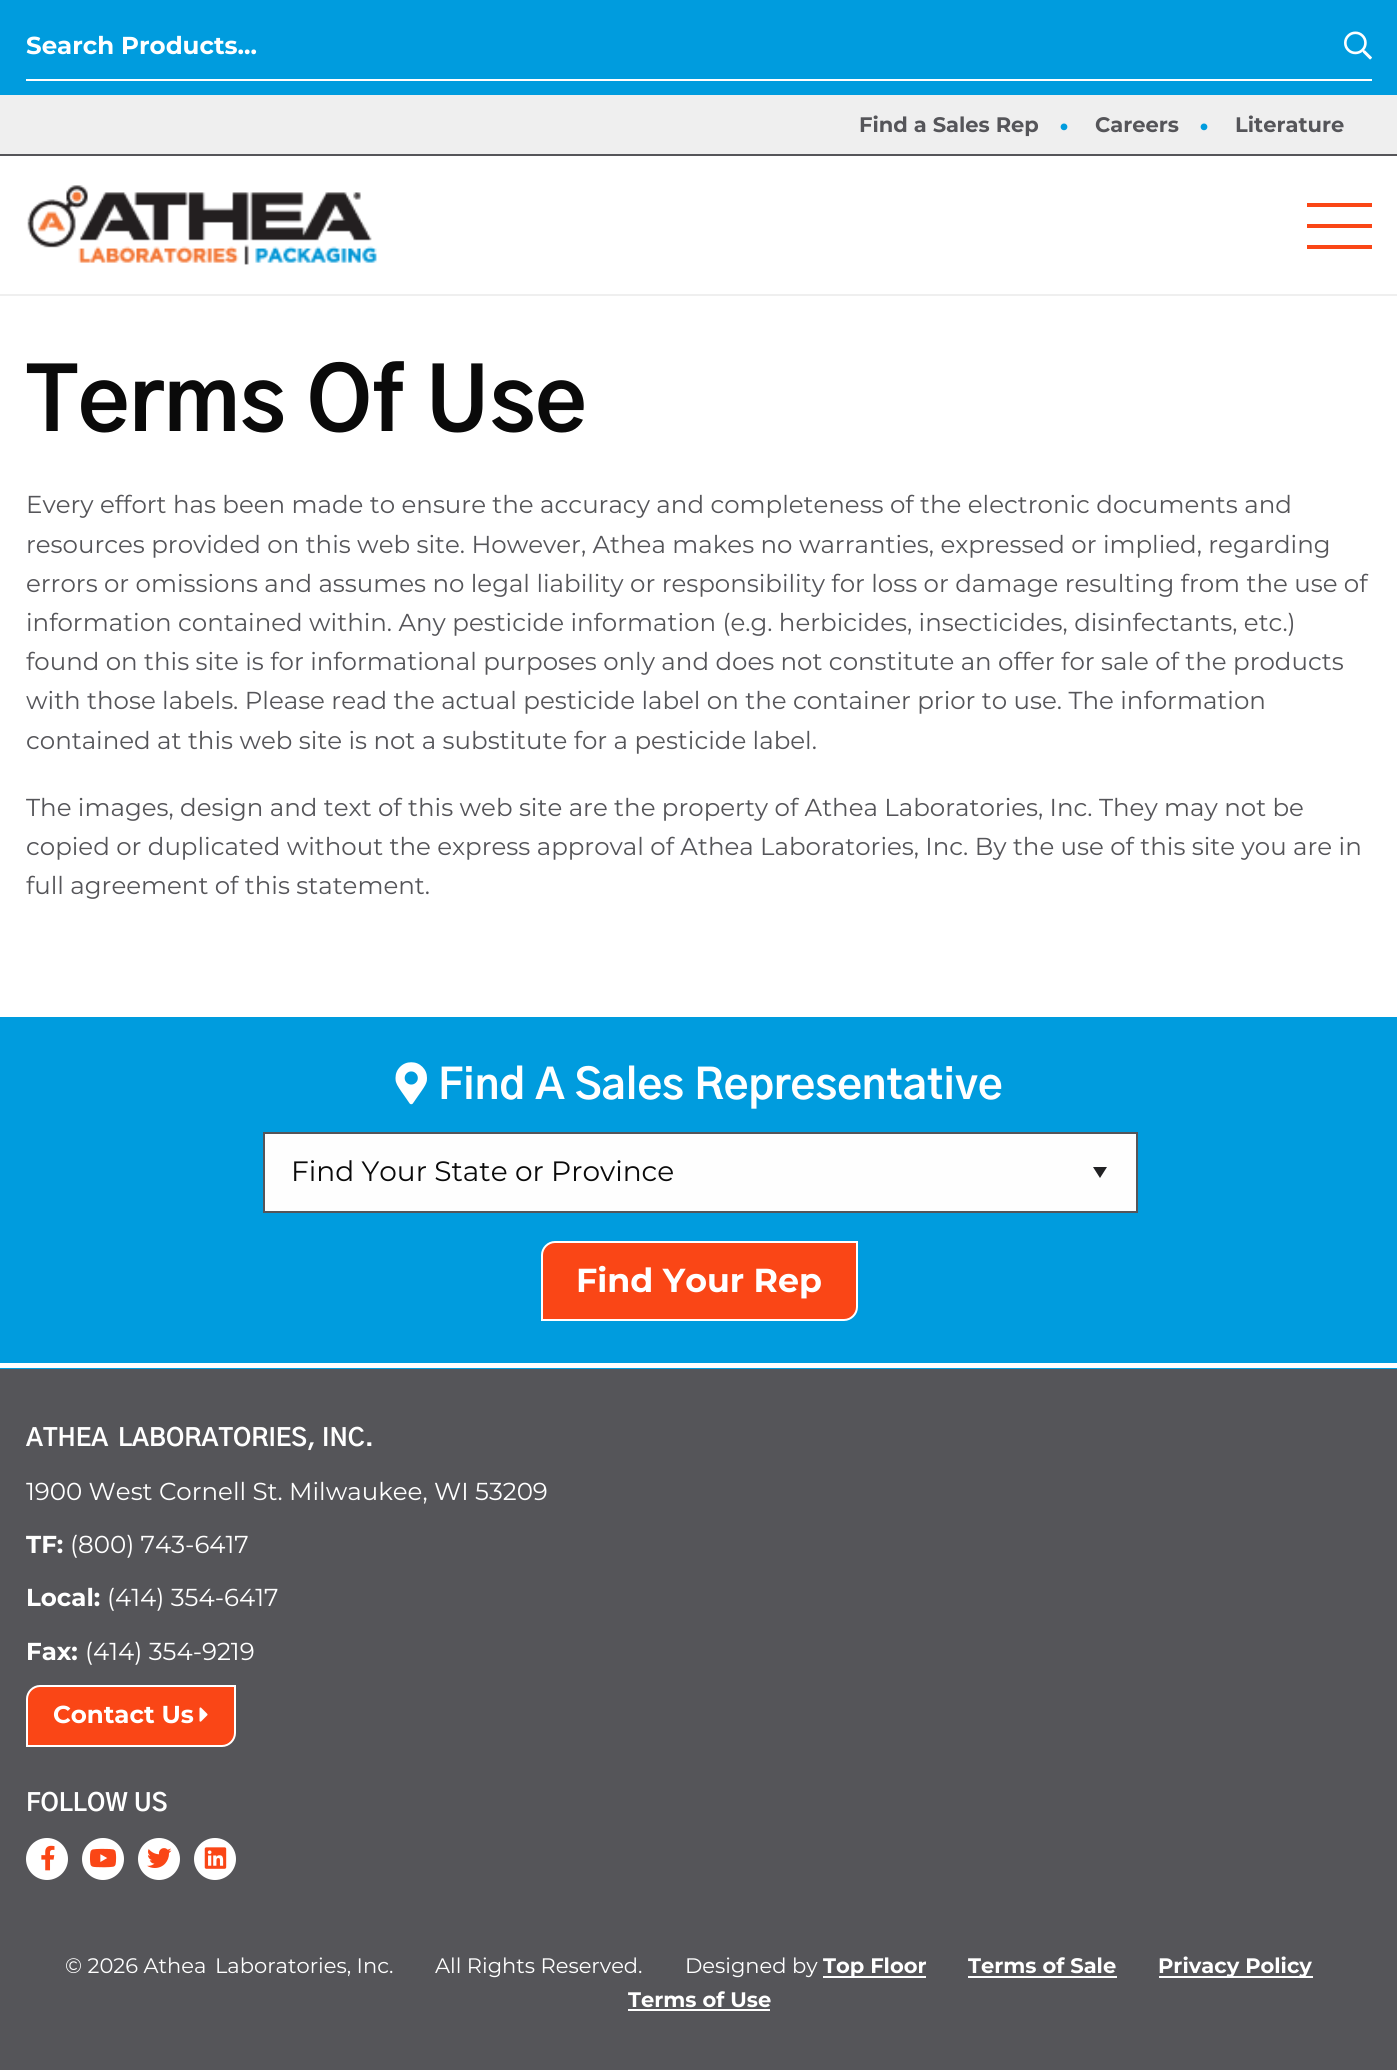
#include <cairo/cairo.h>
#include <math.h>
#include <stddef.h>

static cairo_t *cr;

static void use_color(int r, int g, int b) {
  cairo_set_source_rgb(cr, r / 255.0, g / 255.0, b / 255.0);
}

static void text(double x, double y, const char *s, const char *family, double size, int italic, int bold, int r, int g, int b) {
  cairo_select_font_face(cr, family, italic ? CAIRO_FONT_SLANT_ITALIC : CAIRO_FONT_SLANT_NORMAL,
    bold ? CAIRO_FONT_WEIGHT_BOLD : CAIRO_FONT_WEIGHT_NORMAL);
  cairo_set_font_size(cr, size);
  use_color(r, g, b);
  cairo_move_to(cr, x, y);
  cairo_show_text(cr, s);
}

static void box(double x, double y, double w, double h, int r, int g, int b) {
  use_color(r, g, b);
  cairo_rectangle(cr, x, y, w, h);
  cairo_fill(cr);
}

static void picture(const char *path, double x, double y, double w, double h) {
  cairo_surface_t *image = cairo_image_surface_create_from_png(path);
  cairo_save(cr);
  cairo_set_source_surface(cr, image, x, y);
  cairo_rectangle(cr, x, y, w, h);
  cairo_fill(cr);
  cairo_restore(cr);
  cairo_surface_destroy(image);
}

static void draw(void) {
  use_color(255, 255, 255);
  cairo_paint(cr);
  box(0, 0, 1397, 95, 0, 156, 222);
  box(26, 79, 1346, 2, 255, 255, 255);
  picture("img_01.png", 1344, 31, 28, 29);
  box(0, 95, 1397, 59, 239, 239, 239);
  box(0, 154, 1397, 2, 85, 85, 89);
  picture("img_02.png", 1060, 123, 8, 8);
  picture("img_02.png", 1200, 123, 8, 8);
  box(0, 294, 1397, 2, 239, 239, 239);
  picture("img_03.png", 27, 185, 350, 80);
  box(1307, 203, 65, 4, 250, 70, 22);
  box(1307, 224, 65, 4, 250, 70, 22);
  box(1307, 245, 65, 4, 250, 70, 22);
  box(0, 1017, 1397, 352, 0, 156, 222);
  box(0, 1363, 1397, 5, 255, 255, 255);
  picture("img_04.png", 395, 1062, 32, 43);
  box(265, 1134, 871, 77, 254, 254, 254);
  use_color(33, 33, 35);
  cairo_new_path(cr);
  cairo_move_to(cr, 1093, 1167);
  cairo_line_to(cr, 1107, 1167);
  cairo_line_to(cr, 1100, 1178);
  cairo_close_path(cr);
  cairo_fill(cr);
  cairo_rectangle(cr, 264, 1133, 873, 79);
  use_color(85, 85, 89);
  cairo_stroke(cr);
  use_color(250, 70, 22);
  cairo_new_path(cr);
  cairo_move_to(cr, 555, 1242);
  cairo_line_to(cr, 857, 1242);
  cairo_line_to(cr, 857, 1307);
  cairo_curve_to(cr, 857, 1314, 851, 1320, 844, 1320);
  cairo_line_to(cr, 542, 1320);
  cairo_line_to(cr, 542, 1255);
  cairo_curve_to(cr, 542, 1248, 548, 1242, 555, 1242);
  cairo_close_path(cr);
  cairo_fill_preserve(cr);
  use_color(255, 255, 255);
  cairo_stroke(cr);
  box(0, 1369, 1397, 701, 85, 85, 89);
  use_color(250, 70, 22);
  cairo_new_path(cr);
  cairo_move_to(cr, 40, 1686);
  cairo_line_to(cr, 235, 1686);
  cairo_line_to(cr, 235, 1733);
  cairo_curve_to(cr, 235, 1740, 229, 1746, 222, 1746);
  cairo_line_to(cr, 27, 1746);
  cairo_line_to(cr, 27, 1699);
  cairo_curve_to(cr, 27, 1692, 33, 1686, 40, 1686);
  cairo_close_path(cr);
  cairo_fill_preserve(cr);
  use_color(255, 255, 255);
  cairo_stroke(cr);
  picture("img_05.png", 199, 1707, 9, 15);
  cairo_arc(cr, 47, 1859, 20, 0, 2 * M_PI);
  cairo_fill_preserve(cr);
  cairo_stroke(cr);
  picture("img_06.png", 41, 1845, 14, 26);
  cairo_arc(cr, 103, 1859, 20, 0, 2 * M_PI);
  cairo_fill_preserve(cr);
  cairo_stroke(cr);
  picture("img_07.png", 89, 1848, 28, 20);
  cairo_arc(cr, 159, 1859, 20, 0, 2 * M_PI);
  cairo_fill_preserve(cr);
  cairo_stroke(cr);
  picture("img_08.png", 147, 1848, 25, 20);
  cairo_arc(cr, 215, 1859, 20, 0, 2 * M_PI);
  cairo_fill_preserve(cr);
  cairo_stroke(cr);
  picture("img_09.png", 204, 1847, 23, 22);
  box(823, 1976, 103, 2, 255, 255, 255);
  box(968, 1976, 149, 2, 255, 255, 255);
  box(1159, 1976, 154, 2, 255, 255, 255);
  box(628, 2009, 142, 2, 255, 255, 255);
  text(26, 54, "Search Products...", "Montserrat", 24.5, 0, 1, 255, 255, 255);
  text(859, 132, "Find a Sales Rep", "Montserrat", 21, 0, 1, 85, 85, 89);
  text(1095, 132, "Careers", "Montserrat", 21, 0, 1, 85, 85, 89);
  text(1235, 132, "Literature", "Montserrat", 21, 0, 1, 85, 85, 89);
  text(26, 431, "Terms Of Use", "Gothic A1", 87.5, 0, 1, 10, 10, 10);
  text(26, 513, "Every effort has been made to ensure the accuracy and completeness of the electronic documents and", "Montserrat", 24.5, 0, 0, 85, 85, 89);
  text(26, 553, "resources provided on this web site. However, Athea makes no warranties, expressed or implied, regarding", "Montserrat", 24.5, 0, 0, 85, 85, 89);
  text(26, 592, "errors or omissions and assumes no legal liability or responsibility for loss or damage resulting from the use of", "Montserrat", 24.5, 0, 0, 85, 85, 89);
  text(26, 631, "information contained within. Any pesticide information (e.g. herbicides, insecticides, disinfectants, etc.)", "Montserrat", 24.5, 0, 0, 85, 85, 89);
  text(26, 670, "found on this site is for informational purposes only and does not constitute an offer for sale of the products", "Montserrat", 24.5, 0, 0, 85, 85, 89);
  text(26, 709, "with those labels. Please read the actual pesticide label on the container prior to use. The information", "Montserrat", 24.5, 0, 0, 85, 85, 89);
  text(26, 749, "contained at this web site is not a substitute for a pesticide label.", "Montserrat", 24.5, 0, 0, 85, 85, 89);
  text(26, 816, "The images, design and text of this web site are the property of Athea Laboratories, Inc. They may not be", "Montserrat", 24.5, 0, 0, 85, 85, 89);
  text(26, 855, "copied or duplicated without the express approval of Athea Laboratories, Inc. By the use of this site you are in", "Montserrat", 24.5, 0, 0, 85, 85, 89);
  text(26, 894, "full agreement of this statement.", "Montserrat", 24.5, 0, 0, 85, 85, 89);
  text(438, 1099, "Find A Sales Representative", "Gothic A1", 42, 0, 1, 255, 255, 255);
  text(291, 1181, "Find Your State or Province", "Montserrat", 28, 0, 0, 10, 10, 10);
  text(576, 1292, "Find Your Rep", "Montserrat", 33.25, 0, 1, 255, 255, 255);
  text(26, 1446, "ATHEA", "Gothic A1", 24.5, 0, 1, 255, 255, 255);
  text(118, 1446, "LABORATORIES, INC.", "Gothic A1", 24.5, 0, 1, 255, 255, 255);
  text(26, 1500, "1900 West Cornell St. Milwaukee, WI 53209", "Montserrat", 24.5, 0, 0, 255, 255, 255);
  text(26, 1553, "TF:", "Montserrat", 24.5, 0, 1, 255, 255, 255);
  text(70, 1553, "(800) 743-6417", "Montserrat", 24.5, 0, 0, 255, 255, 255);
  text(26, 1606, "Local:", "Montserrat", 24.5, 0, 1, 255, 255, 255);
  text(107, 1606, "(414) 354-6417", "Montserrat", 24.5, 0, 0, 255, 255, 255);
  text(26, 1660, "Fax:", "Montserrat", 24.5, 0, 1, 255, 255, 255);
  text(85, 1660, "(414) 354-9219", "Montserrat", 24.5, 0, 0, 255, 255, 255);
  text(53, 1723, "Contact Us", "Montserrat", 24.5, 0, 1, 255, 255, 255);
  text(26, 1811, "FOLLOW US", "Gothic A1", 24.5, 0, 1, 255, 255, 255);
  text(65, 1973, "© 2026 Athea", "Montserrat", 21, 0, 0, 255, 255, 255);
  text(215, 1973, "Laboratories, Inc.", "Montserrat", 21, 0, 0, 255, 255, 255);
  text(435, 1973, "All Rights Reserved.", "Montserrat", 21, 0, 0, 255, 255, 255);
  text(685, 1973, "Designed by", "Montserrat", 21, 0, 0, 255, 255, 255);
  text(823, 1973, "Top Floor", "Montserrat", 21, 0, 1, 255, 255, 255);
  text(968, 1973, "Terms of Sale", "Montserrat", 21, 0, 1, 255, 255, 255);
  text(1158, 1973, "Privacy Policy", "Montserrat", 21, 0, 1, 255, 255, 255);
  text(628, 2007, "Terms of Use", "Montserrat", 21, 0, 1, 255, 255, 255);
}

int main(void) {
  cairo_surface_t *surface = cairo_image_surface_create(CAIRO_FORMAT_RGB24, 1397, 2070);
  cr = cairo_create(surface);
  cairo_font_options_t *options = cairo_font_options_create();
  cairo_font_options_set_hint_metrics(options, CAIRO_HINT_METRICS_OFF);
  cairo_font_options_set_hint_style(options, CAIRO_HINT_STYLE_NONE);
  cairo_set_font_options(cr, options);
  cairo_set_miter_limit(cr, 4);
  draw();
  cairo_surface_write_to_png(surface, "out.png");
  cairo_font_options_destroy(options);
  cairo_destroy(cr);
  cairo_surface_destroy(surface);
  return 0;
}
